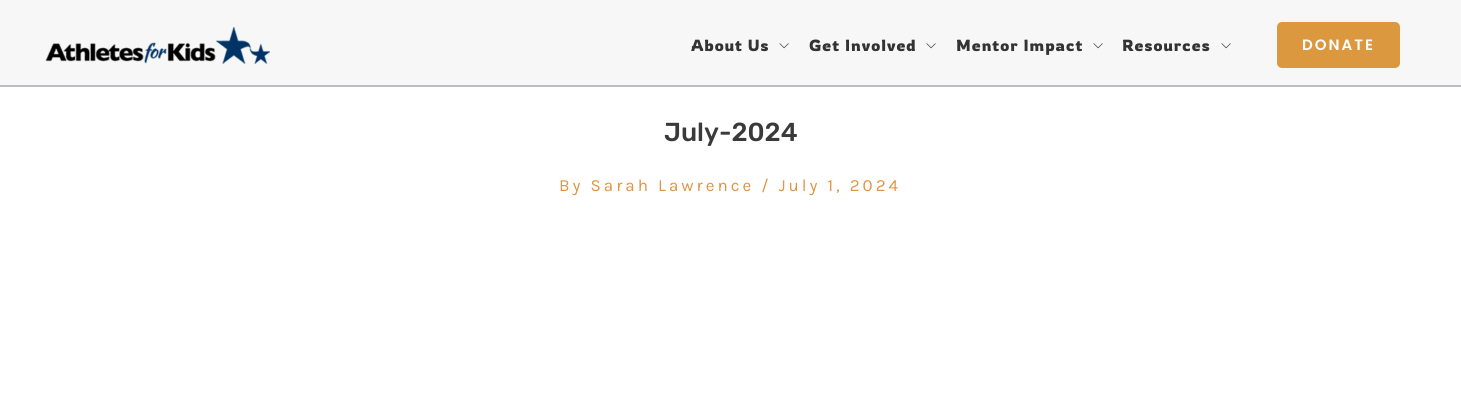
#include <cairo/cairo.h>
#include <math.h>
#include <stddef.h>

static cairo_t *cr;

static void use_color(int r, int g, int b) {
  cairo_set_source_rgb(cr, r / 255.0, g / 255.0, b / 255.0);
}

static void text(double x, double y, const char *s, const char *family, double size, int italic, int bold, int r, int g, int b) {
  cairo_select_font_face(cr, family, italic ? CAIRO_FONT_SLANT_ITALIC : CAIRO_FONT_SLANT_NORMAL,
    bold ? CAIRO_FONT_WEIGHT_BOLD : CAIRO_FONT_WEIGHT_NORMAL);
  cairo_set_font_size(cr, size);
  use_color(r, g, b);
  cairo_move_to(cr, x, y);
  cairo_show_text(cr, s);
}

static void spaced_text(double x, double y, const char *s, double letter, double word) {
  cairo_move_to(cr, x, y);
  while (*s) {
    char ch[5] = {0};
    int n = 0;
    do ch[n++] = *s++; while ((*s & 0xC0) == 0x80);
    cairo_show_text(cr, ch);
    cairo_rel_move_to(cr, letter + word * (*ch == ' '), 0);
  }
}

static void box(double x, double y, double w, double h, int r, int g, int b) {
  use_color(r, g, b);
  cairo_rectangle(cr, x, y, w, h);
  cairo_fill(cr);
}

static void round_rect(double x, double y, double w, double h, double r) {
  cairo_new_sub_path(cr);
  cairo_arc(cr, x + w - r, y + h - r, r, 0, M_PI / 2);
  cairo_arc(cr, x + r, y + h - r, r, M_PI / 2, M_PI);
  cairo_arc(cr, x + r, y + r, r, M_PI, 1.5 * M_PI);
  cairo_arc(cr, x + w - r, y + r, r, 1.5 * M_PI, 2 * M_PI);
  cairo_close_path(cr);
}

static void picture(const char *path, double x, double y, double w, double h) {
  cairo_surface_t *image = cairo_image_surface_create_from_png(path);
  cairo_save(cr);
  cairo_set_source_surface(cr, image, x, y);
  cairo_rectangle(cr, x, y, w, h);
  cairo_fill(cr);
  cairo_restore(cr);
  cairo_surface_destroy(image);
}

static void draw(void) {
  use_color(255, 255, 255);
  cairo_paint(cr);
  box(0, 0, 1461, 85, 247, 247, 247);
  box(0, 85, 1461, 2, 189, 187, 195);
  picture("img_01.png", 45, 27, 225, 37);
  picture("img_02.png", 779, 43, 10, 6);
  picture("img_02.png", 926, 43, 10, 6);
  picture("img_02.png", 1093, 43, 10, 6);
  picture("img_02.png", 1221, 43, 10, 6);
  use_color(220, 152, 62);
  round_rect(1277, 22, 123, 46, 5);
  cairo_fill(cr);
  cairo_select_font_face(cr, "Rowdies", CAIRO_FONT_SLANT_NORMAL, CAIRO_FONT_WEIGHT_NORMAL);
  cairo_set_font_size(cr, 16);
  use_color(51, 51, 51);
  spaced_text(691, 51, "About Us", 1, 0);
  spaced_text(809, 51, "Get Involved", 1, 0);
  spaced_text(956, 51, "Mentor Impact", 1, 0);
  spaced_text(1122, 51, "Resources", 1, 0);
  cairo_select_font_face(cr, "Poppins SemiBold", CAIRO_FONT_SLANT_NORMAL, CAIRO_FONT_WEIGHT_NORMAL);
  cairo_set_font_size(cr, 15);
  use_color(255, 255, 255);
  spaced_text(1302, 50, "DONATE", 2, 0);
  text(664, 141, "July-2024", "Rubik Light", 26, 0, 0, 58, 58, 58);
  cairo_select_font_face(cr, "Karla", CAIRO_FONT_SLANT_NORMAL, CAIRO_FONT_WEIGHT_NORMAL);
  cairo_set_font_size(cr, 17);
  use_color(224, 148, 67);
  spaced_text(559, 191, "By Sarah Lawrence / July 1, 2024", 3, 0);
}

int main(void) {
  cairo_surface_t *surface = cairo_image_surface_create(CAIRO_FORMAT_RGB24, 1461, 419);
  cr = cairo_create(surface);
  cairo_font_options_t *options = cairo_font_options_create();
  cairo_font_options_set_hint_metrics(options, CAIRO_HINT_METRICS_OFF);
  cairo_font_options_set_hint_style(options, CAIRO_HINT_STYLE_NONE);
  cairo_set_font_options(cr, options);
  cairo_set_miter_limit(cr, 4);
  draw();
  cairo_surface_write_to_png(surface, "out.png");
  cairo_font_options_destroy(options);
  cairo_destroy(cr);
  cairo_surface_destroy(surface);
  return 0;
}
